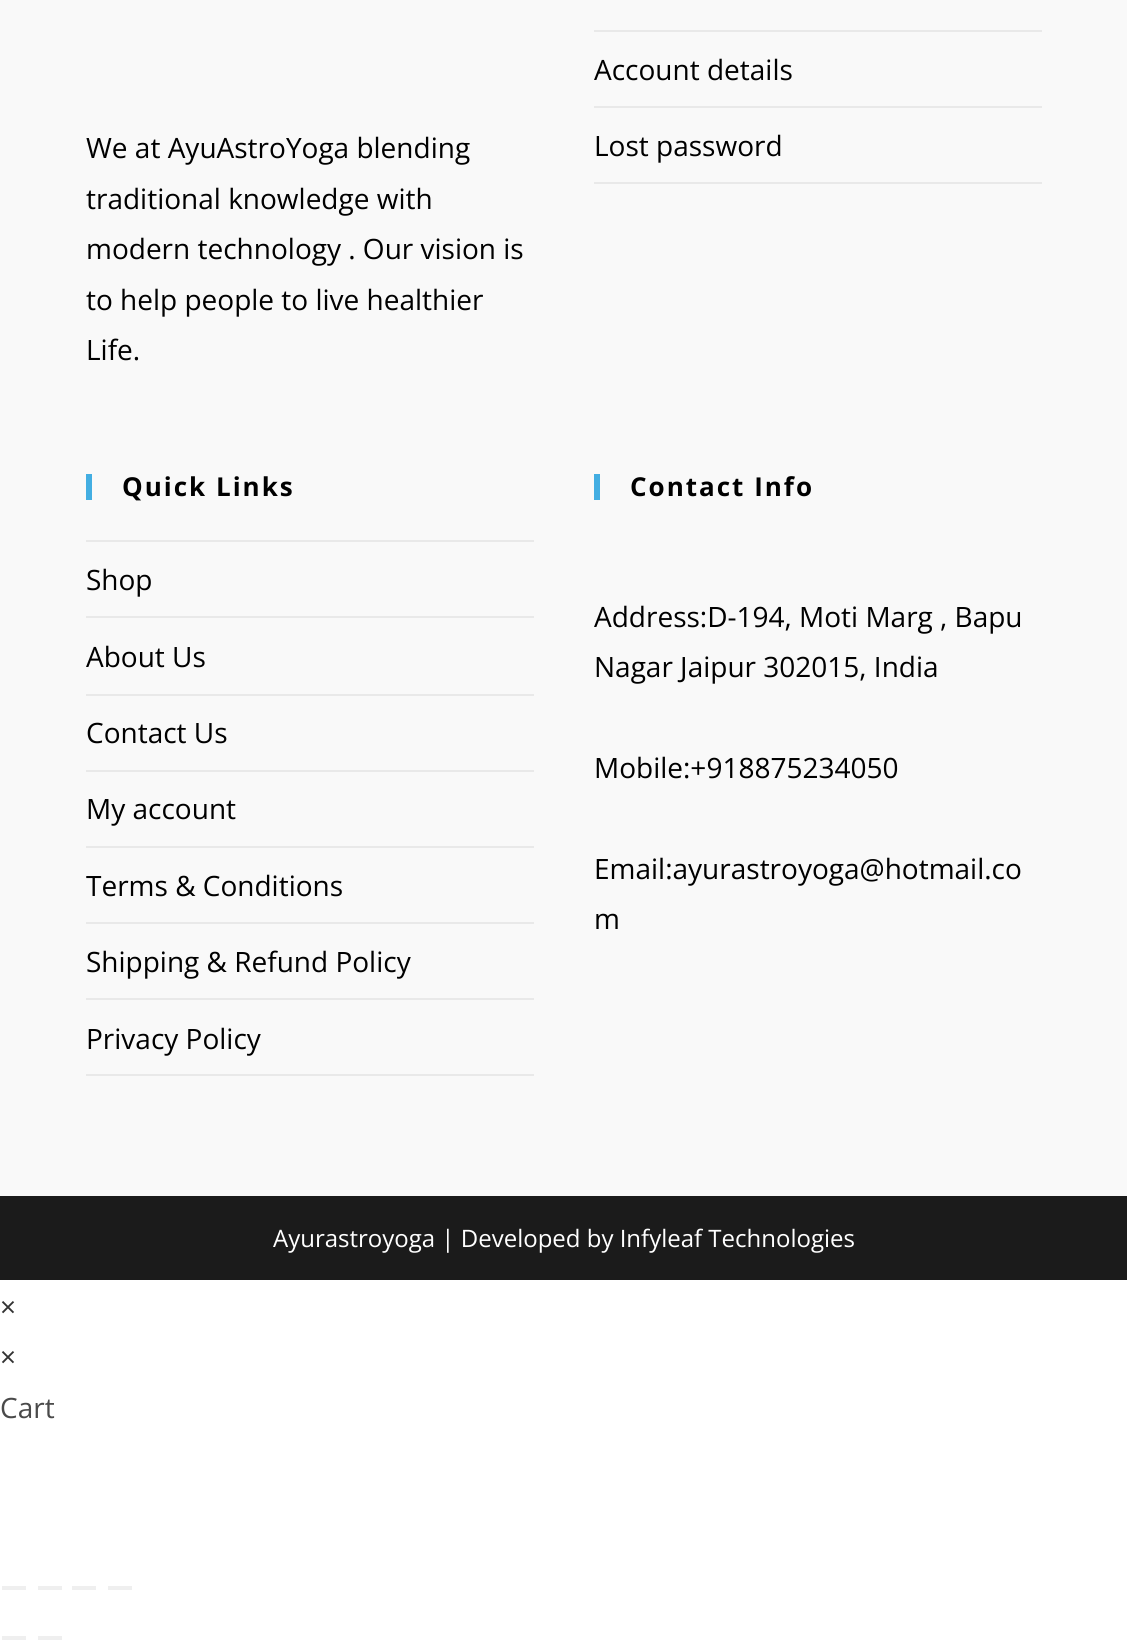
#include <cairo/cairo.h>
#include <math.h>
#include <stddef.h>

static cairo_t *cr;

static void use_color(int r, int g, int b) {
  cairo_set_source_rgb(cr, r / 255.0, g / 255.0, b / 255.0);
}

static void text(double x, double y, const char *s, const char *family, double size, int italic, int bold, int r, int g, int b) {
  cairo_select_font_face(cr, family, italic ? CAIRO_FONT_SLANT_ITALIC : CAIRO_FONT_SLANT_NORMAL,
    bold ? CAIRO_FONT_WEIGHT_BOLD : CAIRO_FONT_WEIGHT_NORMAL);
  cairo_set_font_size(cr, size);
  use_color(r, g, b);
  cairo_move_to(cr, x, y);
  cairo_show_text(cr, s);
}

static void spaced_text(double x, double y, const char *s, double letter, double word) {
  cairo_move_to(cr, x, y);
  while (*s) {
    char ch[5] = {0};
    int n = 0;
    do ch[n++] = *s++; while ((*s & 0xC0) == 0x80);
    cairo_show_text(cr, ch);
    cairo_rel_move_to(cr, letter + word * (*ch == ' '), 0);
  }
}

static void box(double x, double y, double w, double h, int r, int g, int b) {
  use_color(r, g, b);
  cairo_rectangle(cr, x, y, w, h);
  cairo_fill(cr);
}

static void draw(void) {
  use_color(255, 255, 255);
  cairo_paint(cr);
  box(0, 0, 1127, 1196, 249, 249, 249);
  box(594, 30, 448, 2, 233, 233, 233);
  box(594, 106, 448, 2, 233, 233, 233);
  box(594, 182, 448, 2, 233, 233, 233);
  box(86, 474, 6, 26, 67, 174, 226);
  box(86, 540, 448, 2, 233, 233, 233);
  box(86, 616, 448, 2, 233, 233, 233);
  box(86, 694, 448, 2, 233, 233, 233);
  box(86, 770, 448, 2, 233, 233, 233);
  box(86, 846, 448, 2, 233, 233, 233);
  box(86, 922, 448, 2, 233, 233, 233);
  box(86, 998, 448, 2, 233, 233, 233);
  box(86, 1074, 448, 2, 233, 233, 233);
  box(594, 474, 6, 26, 67, 174, 226);
  box(0, 1196, 1127, 84, 27, 27, 27);
  use_color(239, 239, 239);
  cairo_rectangle(cr, 1, 1585, 26, 6);
  cairo_fill_preserve(cr);
  use_color(255, 255, 255);
  cairo_stroke(cr);
  use_color(239, 239, 239);
  cairo_rectangle(cr, 37, 1585, 26, 6);
  cairo_fill_preserve(cr);
  use_color(255, 255, 255);
  cairo_stroke(cr);
  use_color(239, 239, 239);
  cairo_rectangle(cr, 71, 1585, 26, 6);
  cairo_fill_preserve(cr);
  use_color(255, 255, 255);
  cairo_stroke(cr);
  use_color(239, 239, 239);
  cairo_rectangle(cr, 107, 1585, 26, 6);
  cairo_fill_preserve(cr);
  use_color(255, 255, 255);
  cairo_stroke(cr);
  use_color(239, 239, 239);
  cairo_rectangle(cr, 1, 1635, 26, 6);
  cairo_fill_preserve(cr);
  use_color(255, 255, 255);
  cairo_stroke(cr);
  use_color(239, 239, 239);
  cairo_rectangle(cr, 37, 1635, 26, 6);
  cairo_fill_preserve(cr);
  use_color(255, 255, 255);
  cairo_stroke(cr);
  text(594, 80, "Account details", "Open Sans", 28, 0, 0, 0, 0, 0);
  text(594, 156, "Lost password", "Open Sans", 28, 0, 0, 0, 0, 0);
  text(86, 158, "We at AyuAstroYoga blending", "Open Sans", 28, 0, 0, 0, 0, 0);
  text(86, 209, "traditional knowledge with", "Open Sans", 28, 0, 0, 0, 0, 0);
  text(86, 259, "modern technology . Our vision is", "Open Sans", 28, 0, 0, 0, 0, 0);
  text(86, 310, "to help people to live healthier", "Open Sans", 28, 0, 0, 0, 0, 0);
  text(86, 360, "Life.", "Open Sans", 28, 0, 0, 0, 0, 0);
  cairo_select_font_face(cr, "Open Sans", CAIRO_FONT_SLANT_NORMAL, CAIRO_FONT_WEIGHT_BOLD);
  cairo_set_font_size(cr, 26);
  spaced_text(122, 496, "Quick Links", 2, 0);
  text(86, 590, "Shop", "Open Sans", 28, 0, 0, 0, 0, 0);
  text(86, 667, "About Us", "Open Sans", 28, 0, 0, 0, 0, 0);
  text(86, 743, "Contact Us", "Open Sans", 28, 0, 0, 0, 0, 0);
  text(86, 819, "My account", "Open Sans", 28, 0, 0, 0, 0, 0);
  text(86, 896, "Terms & Conditions", "Open Sans", 28, 0, 0, 0, 0, 0);
  text(86, 972, "Shipping & Refund Policy", "Open Sans", 28, 0, 0, 0, 0, 0);
  text(86, 1049, "Privacy Policy", "Open Sans", 28, 0, 0, 0, 0, 0);
  cairo_select_font_face(cr, "Open Sans", CAIRO_FONT_SLANT_NORMAL, CAIRO_FONT_WEIGHT_BOLD);
  cairo_set_font_size(cr, 26);
  spaced_text(630, 496, "Contact Info", 2, 0);
  text(594, 627, "Address:D-194, Moti Marg , Bapu", "Open Sans", 28, 0, 0, 0, 0, 0);
  text(594, 677, "Nagar Jaipur 302015, India", "Open Sans", 28, 0, 0, 0, 0, 0);
  text(594, 778, "Mobile:+918875234050", "Open Sans", 28, 0, 0, 0, 0, 0);
  text(594, 879, "Email:ayurastroyoga@hotmail.co", "Open Sans", 28, 0, 0, 0, 0, 0);
  text(594, 929, "m", "Open Sans", 28, 0, 0, 0, 0, 0);
  text(273, 1247, "Ayurastroyoga | Developed by Infyleaf Technologies", "Open Sans", 24, 0, 0, 255, 255, 255);
  text(0, 1317, "×", "Open Sans", 28, 0, 0, 51, 51, 51);
  text(0, 1367, "×", "Open Sans", 28, 0, 0, 51, 51, 51);
  text(0, 1418, "Cart", "Open Sans", 28, 0, 0, 74, 74, 74);
}

int main(void) {
  cairo_surface_t *surface = cairo_image_surface_create(CAIRO_FORMAT_RGB24, 1127, 1651);
  cr = cairo_create(surface);
  cairo_font_options_t *options = cairo_font_options_create();
  cairo_font_options_set_hint_metrics(options, CAIRO_HINT_METRICS_OFF);
  cairo_font_options_set_hint_style(options, CAIRO_HINT_STYLE_NONE);
  cairo_set_font_options(cr, options);
  cairo_set_miter_limit(cr, 4);
  draw();
  cairo_surface_write_to_png(surface, "out.png");
  cairo_font_options_destroy(options);
  cairo_destroy(cr);
  cairo_surface_destroy(surface);
  return 0;
}
